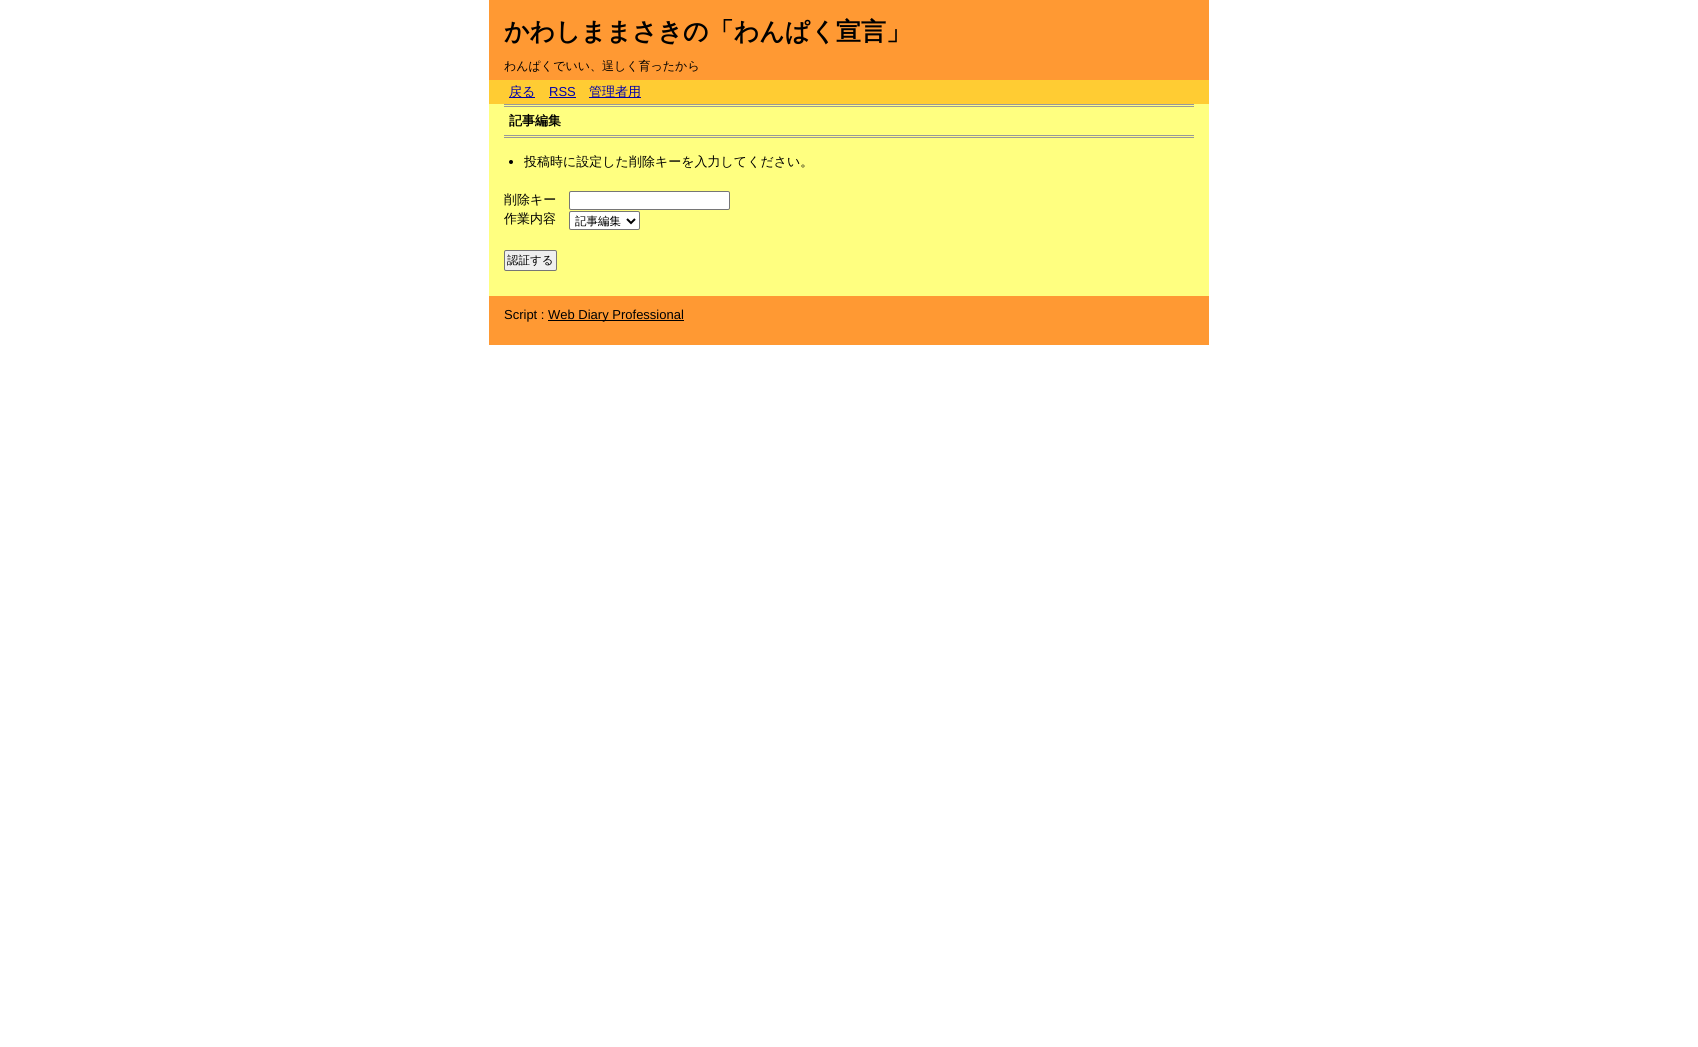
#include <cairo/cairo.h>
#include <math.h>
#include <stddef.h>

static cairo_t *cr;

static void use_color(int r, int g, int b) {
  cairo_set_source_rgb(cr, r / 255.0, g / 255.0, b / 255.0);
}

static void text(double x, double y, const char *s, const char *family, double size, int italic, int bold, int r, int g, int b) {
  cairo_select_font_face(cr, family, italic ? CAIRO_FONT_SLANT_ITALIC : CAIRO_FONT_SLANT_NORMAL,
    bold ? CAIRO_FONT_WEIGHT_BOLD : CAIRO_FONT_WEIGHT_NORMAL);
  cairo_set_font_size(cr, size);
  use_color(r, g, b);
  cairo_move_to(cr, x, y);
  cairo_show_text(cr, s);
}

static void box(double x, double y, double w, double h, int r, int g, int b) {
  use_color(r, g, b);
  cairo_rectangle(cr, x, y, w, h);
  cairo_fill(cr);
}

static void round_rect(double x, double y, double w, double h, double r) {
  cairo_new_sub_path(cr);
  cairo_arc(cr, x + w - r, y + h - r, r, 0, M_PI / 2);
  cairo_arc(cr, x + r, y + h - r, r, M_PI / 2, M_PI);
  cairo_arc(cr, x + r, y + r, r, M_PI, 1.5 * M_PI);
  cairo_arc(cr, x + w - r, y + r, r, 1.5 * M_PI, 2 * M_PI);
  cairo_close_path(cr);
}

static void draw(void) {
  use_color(255, 255, 255);
  cairo_paint(cr);
  box(489, 104, 720, 192, 255, 255, 128);
  box(489, 0, 720, 80, 255, 153, 51);
  box(489, 80, 720, 24, 255, 204, 51);
  box(509, 97, 26, 1, 0, 0, 170);
  box(549, 97, 27, 1, 0, 0, 170);
  box(589, 97, 52, 1, 0, 0, 170);
  box(504, 104, 690, 1, 153, 153, 153);
  box(504, 106, 690, 1, 153, 153, 153);
  box(504, 135, 690, 1, 153, 153, 153);
  box(504, 137, 690, 1, 153, 153, 153);
  use_color(0, 0, 0);
  cairo_arc(cr, 511, 162, 2, 0, 2 * M_PI);
  cairo_fill(cr);
  use_color(255, 255, 255);
  round_rect(569.5, 191.5, 160, 18, 1.5);
  cairo_fill_preserve(cr);
  use_color(118, 118, 118);
  cairo_set_line_width(cr, 1);
  cairo_stroke(cr);
  use_color(255, 255, 255);
  round_rect(569.5, 211.5, 70, 18, 1.5);
  cairo_fill_preserve(cr);
  use_color(118, 118, 118);
  cairo_stroke(cr);
  cairo_new_path(cr);
  cairo_move_to(cr, 627, 219);
  cairo_line_to(cr, 631, 223);
  cairo_line_to(cr, 635, 219);
  use_color(0, 0, 0);
  cairo_set_line_width(cr, 2);
  cairo_stroke(cr);
  use_color(239, 239, 239);
  round_rect(504.5, 250.5, 52, 20, 1.5);
  cairo_fill_preserve(cr);
  use_color(118, 118, 118);
  cairo_set_line_width(cr, 1);
  cairo_stroke(cr);
  box(489, 296, 720, 49, 255, 153, 51);
  box(548, 320, 136, 1, 0, 0, 0);
  text(504, 40, "かわしままさきの「わんぱく宣言」", "WenQuanYi Zen Hei", 25, 0, 1, 0, 0, 0);
  text(504, 70, "わんぱくでいい、逞しく育ったから", "WenQuanYi Zen Hei Medium", 12, 0, 0, 0, 0, 0);
  text(509, 96, "戻る", "WenQuanYi Zen Hei Medium", 13, 0, 0, 0, 0, 170);
  text(549, 96, "RSS", "Liberation Sans", 13, 0, 0, 0, 0, 170);
  text(589, 96, "管理者用", "WenQuanYi Zen Hei Medium", 13, 0, 0, 0, 0, 170);
  text(509, 125, "記事編集", "WenQuanYi Zen Hei", 13, 0, 1, 0, 0, 0);
  text(524, 166, "投稿時に設定した削除キーを入力してください。", "WenQuanYi Zen Hei Medium", 13, 0, 0, 0, 0, 0);
  text(504, 204, "削除キー", "WenQuanYi Zen Hei Medium", 13, 0, 0, 0, 0, 0);
  text(504, 223, "作業内容", "WenQuanYi Zen Hei Medium", 13, 0, 0, 0, 0, 0);
  text(575, 225, "記事編集", "WenQuanYi Zen Hei Medium", 11.5, 0, 0, 0, 0, 0);
  text(507, 264, "認証する", "WenQuanYi Zen Hei Medium", 11.5, 0, 0, 0, 0, 0);
  text(504, 319, "Script :", "Liberation Sans", 13, 0, 0, 0, 0, 0);
  text(548, 319, "Web Diary Professional", "Liberation Sans", 13, 0, 0, 0, 0, 0);
}

int main(void) {
  cairo_surface_t *surface = cairo_image_surface_create(CAIRO_FORMAT_RGB24, 1698, 1047);
  cr = cairo_create(surface);
  cairo_font_options_t *options = cairo_font_options_create();
  cairo_font_options_set_hint_metrics(options, CAIRO_HINT_METRICS_OFF);
  cairo_font_options_set_hint_style(options, CAIRO_HINT_STYLE_NONE);
  cairo_set_font_options(cr, options);
  cairo_set_miter_limit(cr, 4);
  draw();
  cairo_surface_write_to_png(surface, "out.png");
  cairo_font_options_destroy(options);
  cairo_destroy(cr);
  cairo_surface_destroy(surface);
  return 0;
}
